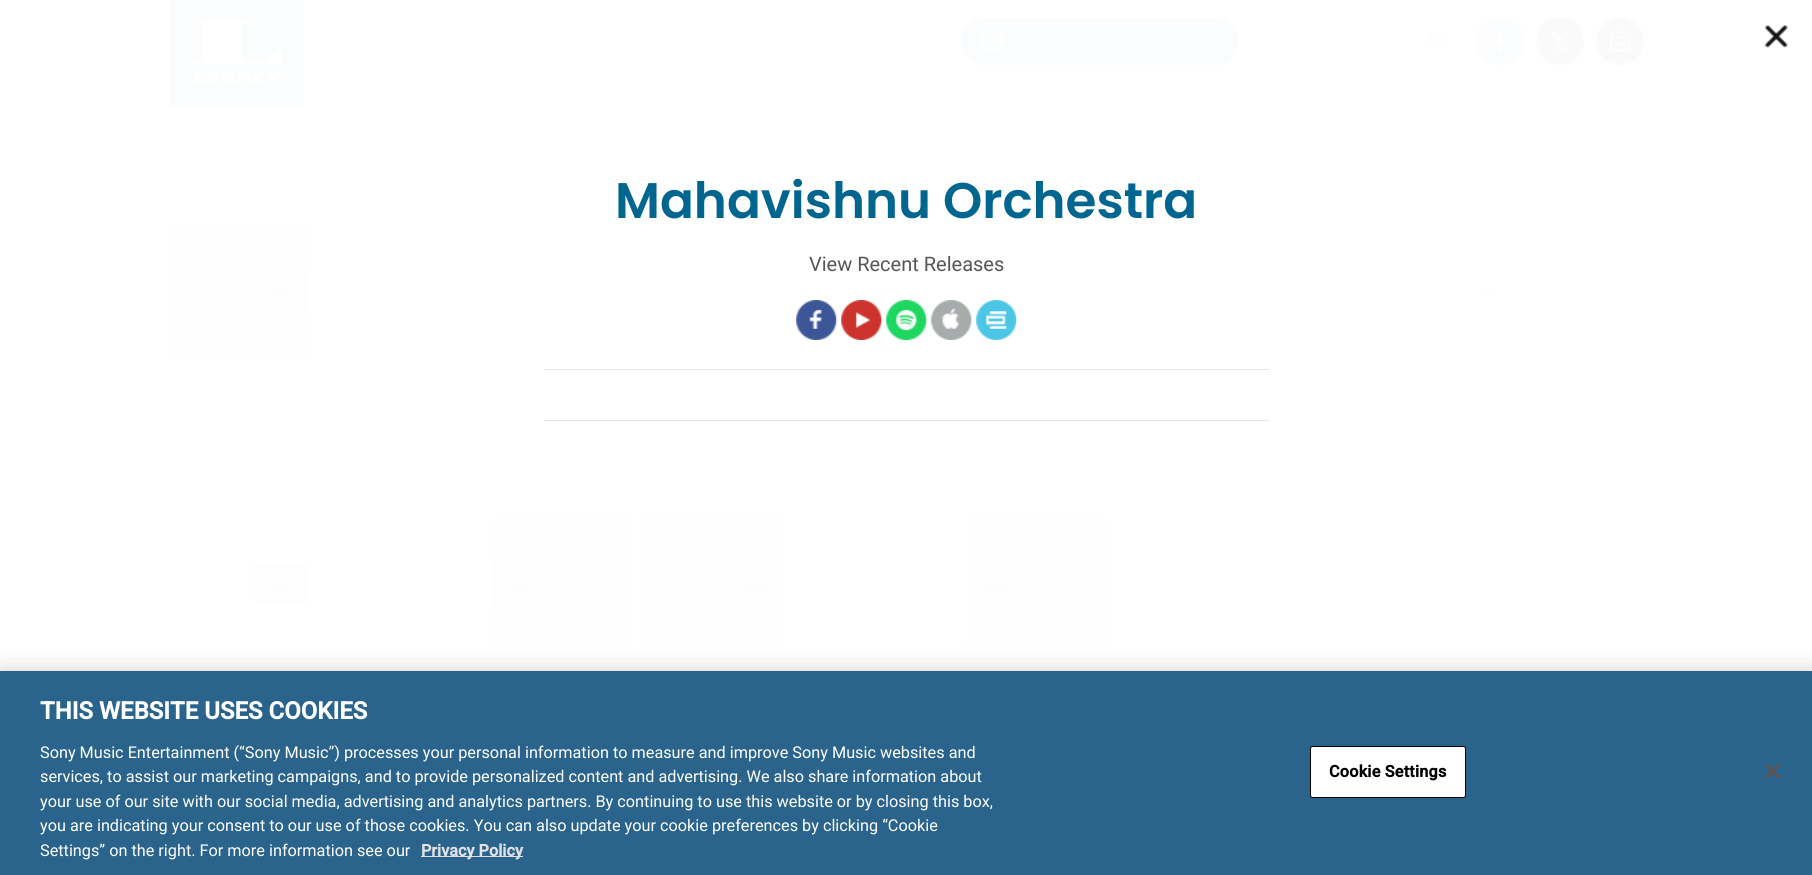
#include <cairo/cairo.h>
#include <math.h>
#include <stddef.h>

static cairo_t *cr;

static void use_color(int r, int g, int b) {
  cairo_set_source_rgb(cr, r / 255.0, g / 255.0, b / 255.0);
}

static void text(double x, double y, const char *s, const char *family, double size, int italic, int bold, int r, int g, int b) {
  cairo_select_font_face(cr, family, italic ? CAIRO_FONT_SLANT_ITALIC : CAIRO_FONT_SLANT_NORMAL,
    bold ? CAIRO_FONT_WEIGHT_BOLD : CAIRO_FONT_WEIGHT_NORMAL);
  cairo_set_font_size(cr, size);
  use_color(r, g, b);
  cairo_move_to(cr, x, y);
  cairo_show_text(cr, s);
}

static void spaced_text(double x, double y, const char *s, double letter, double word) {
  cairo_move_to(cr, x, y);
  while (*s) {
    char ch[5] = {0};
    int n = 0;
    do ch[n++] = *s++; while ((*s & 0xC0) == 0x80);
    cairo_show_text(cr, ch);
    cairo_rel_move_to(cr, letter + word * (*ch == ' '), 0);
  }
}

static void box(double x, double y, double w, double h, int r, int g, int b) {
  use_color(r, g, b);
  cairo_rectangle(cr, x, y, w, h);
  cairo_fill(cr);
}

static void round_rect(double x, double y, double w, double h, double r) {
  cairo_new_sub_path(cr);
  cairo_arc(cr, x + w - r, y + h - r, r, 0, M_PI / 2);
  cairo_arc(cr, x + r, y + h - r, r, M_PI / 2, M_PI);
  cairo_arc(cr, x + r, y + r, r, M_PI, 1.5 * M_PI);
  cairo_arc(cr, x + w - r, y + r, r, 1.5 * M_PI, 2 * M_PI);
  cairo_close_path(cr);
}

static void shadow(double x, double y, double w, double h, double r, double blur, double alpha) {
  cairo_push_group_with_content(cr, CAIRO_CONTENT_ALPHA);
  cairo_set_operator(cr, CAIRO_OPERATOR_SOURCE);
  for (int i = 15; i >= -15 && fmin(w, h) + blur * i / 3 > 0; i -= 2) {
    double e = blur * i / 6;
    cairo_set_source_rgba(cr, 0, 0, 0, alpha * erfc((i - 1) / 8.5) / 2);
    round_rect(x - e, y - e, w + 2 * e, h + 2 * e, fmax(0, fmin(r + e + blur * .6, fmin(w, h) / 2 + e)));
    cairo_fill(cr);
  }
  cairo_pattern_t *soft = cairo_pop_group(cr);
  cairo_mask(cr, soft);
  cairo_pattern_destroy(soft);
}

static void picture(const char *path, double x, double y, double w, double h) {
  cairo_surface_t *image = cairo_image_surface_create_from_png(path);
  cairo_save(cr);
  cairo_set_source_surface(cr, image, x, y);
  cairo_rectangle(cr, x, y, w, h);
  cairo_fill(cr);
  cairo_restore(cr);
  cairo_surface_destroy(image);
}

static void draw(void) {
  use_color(255, 255, 255);
  cairo_paint(cr);
  picture("img_01.png", 169, 0, 135, 108);
  use_color(250, 252, 253);
  round_rect(961, 18, 277, 47, 23.5);
  cairo_fill(cr);
  picture("img_02.png", 979, 32, 24, 18);
  picture("img_03.png", 1428, 32, 15, 20);
  picture("img_04.png", 1475, 17, 49, 48);
  picture("img_05.png", 1535, 17, 49, 48);
  picture("img_06.png", 1595, 17, 49, 48);
  picture("img_07.png", 1764, 25, 24, 23);
  picture("img_08.png", 796, 300, 41, 40);
  picture("img_09.png", 841, 300, 41, 40);
  picture("img_10.png", 886, 300, 41, 40);
  picture("img_11.png", 931, 300, 41, 40);
  picture("img_12.png", 976, 300, 41, 40);
  box(544, 369, 725, 1, 230, 230, 230);
  box(544, 420, 725, 1, 230, 230, 230);
  picture("img_13.png", 168, 224, 140, 131);
  picture("img_14.png", 254, 563, 54, 41);
  picture("img_15.png", 492, 518, 140, 131);
  picture("img_16.png", 643, 517, 140, 132);
  picture("img_17.png", 967, 517, 140, 132);
  box(1483, 293, 12, 1, 250, 252, 253);
  use_color(0, 0, 0);
  shadow(0, 671, 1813, 204, 0, 11, 0.2);
  box(0, 671, 1812, 204, 42, 100, 140);
  box(421, 856, 102, 1, 224, 224, 230);
  use_color(255, 255, 255);
  round_rect(1310.5, 746.5, 155, 51, 2);
  cairo_fill_preserve(cr);
  use_color(0, 0, 0);
  cairo_set_line_width(cr, 1);
  cairo_stroke(cr);
  picture("img_18.png", 1765, 764, 15, 15);
  text(615, 218, "Mahavishnu Orchestra", "Poppins SemiBold", 50, 0, 0, 0, 102, 144);
  text(809, 271, "View Recent Releases", "Roboto", 20, 0, 0, 87, 87, 87);
  text(40, 719, "THIS WEBSITE USES COOKIES", "Roboto", 24, 0, 1, 255, 255, 255);
  text(40, 758, "Sony Music Entertainment (“Sony Music”) processes your personal information to measure and improve Sony Music websites and", "Roboto", 16.25, 0, 0, 255, 255, 255);
  text(40, 782, "services, to assist our marketing campaigns, and to provide personalized content and advertising. We also share information about", "Roboto", 16.25, 0, 0, 255, 255, 255);
  text(40, 807, "your use of our site with our social media, advertising and analytics partners. By continuing to use this website or by closing this box,", "Roboto", 16.25, 0, 0, 255, 255, 255);
  text(40, 831, "you are indicating your consent to our use of those cookies. You can also update your cookie preferences by clicking “Cookie", "Roboto", 16.25, 0, 0, 255, 255, 255);
  text(40, 856, "Settings” on the right. For more information see our", "Roboto", 16.25, 0, 0, 255, 255, 255);
  text(421, 856, "Privacy Policy", "Roboto", 16.25, 0, 1, 224, 224, 230);
  use_color(0, 0, 0);
  spaced_text(1329, 777, "Cookie Settings", 0.2, 0);
}

int main(void) {
  cairo_surface_t *surface = cairo_image_surface_create(CAIRO_FORMAT_RGB24, 1812, 875);
  cr = cairo_create(surface);
  cairo_font_options_t *options = cairo_font_options_create();
  cairo_font_options_set_hint_metrics(options, CAIRO_HINT_METRICS_OFF);
  cairo_font_options_set_hint_style(options, CAIRO_HINT_STYLE_NONE);
  cairo_set_font_options(cr, options);
  cairo_set_miter_limit(cr, 4);
  draw();
  cairo_surface_write_to_png(surface, "out.png");
  cairo_font_options_destroy(options);
  cairo_destroy(cr);
  cairo_surface_destroy(surface);
  return 0;
}
